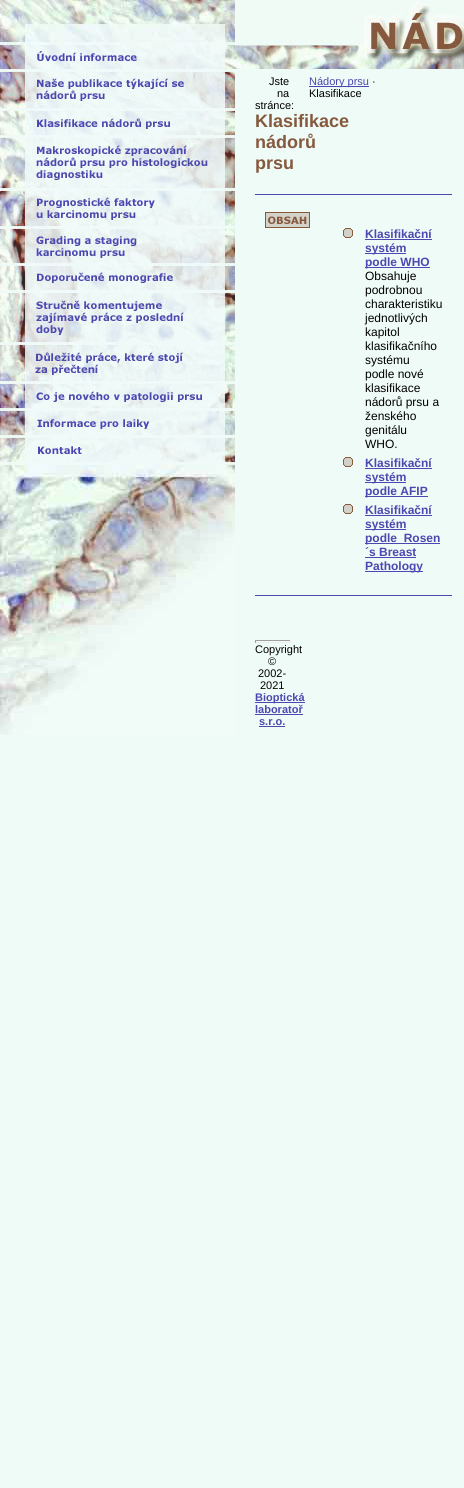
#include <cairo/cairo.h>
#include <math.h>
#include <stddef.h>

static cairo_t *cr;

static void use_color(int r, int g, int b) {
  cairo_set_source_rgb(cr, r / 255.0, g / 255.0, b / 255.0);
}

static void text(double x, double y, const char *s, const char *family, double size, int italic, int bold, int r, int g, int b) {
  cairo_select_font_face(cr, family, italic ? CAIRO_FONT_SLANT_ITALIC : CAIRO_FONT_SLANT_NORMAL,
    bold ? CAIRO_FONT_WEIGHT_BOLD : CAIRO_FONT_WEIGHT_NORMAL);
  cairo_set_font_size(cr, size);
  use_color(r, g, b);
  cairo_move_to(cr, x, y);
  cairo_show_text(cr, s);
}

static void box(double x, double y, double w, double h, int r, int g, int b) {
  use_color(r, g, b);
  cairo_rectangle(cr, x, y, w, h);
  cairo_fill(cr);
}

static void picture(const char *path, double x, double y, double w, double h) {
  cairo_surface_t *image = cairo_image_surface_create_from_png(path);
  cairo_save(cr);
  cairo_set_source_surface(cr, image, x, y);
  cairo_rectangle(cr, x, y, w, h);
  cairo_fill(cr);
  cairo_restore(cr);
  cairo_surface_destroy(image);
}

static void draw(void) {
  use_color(239, 251, 246);
  cairo_paint(cr);
  picture("img_01.png", 0, 0, 235, 45);
  picture("img_02.png", 0, 45, 235, 27);
  picture("img_03.png", 0, 72, 235, 39);
  picture("img_04.png", 0, 111, 235, 27);
  picture("img_05.png", 0, 138, 235, 53);
  picture("img_06.png", 0, 191, 235, 38);
  picture("img_07.png", 0, 229, 235, 37);
  picture("img_08.png", 0, 266, 235, 27);
  picture("img_09.png", 0, 293, 235, 52);
  picture("img_10.png", 0, 345, 235, 39);
  picture("img_11.png", 0, 384, 235, 27);
  picture("img_12.png", 0, 411, 235, 27);
  picture("img_13.png", 0, 438, 235, 27);
  picture("img_14.png", 0, 465, 235, 270);
  picture("img_15.png", 235, 1, 229, 68);
  box(309, 86, 60, 1, 75, 72, 177);
  box(255, 194, 197, 1, 75, 72, 177);
  box(255, 595, 197, 1, 75, 72, 177);
  picture("img_16.png", 265, 212, 45, 16);
  picture("img_17.png", 343, 228, 10, 10);
  box(365, 239, 67, 1, 75, 72, 177);
  box(365, 253, 41, 1, 75, 72, 177);
  box(365, 267, 65, 1, 75, 72, 177);
  picture("img_17.png", 343, 457, 10, 10);
  box(365, 468, 67, 1, 75, 72, 177);
  box(365, 482, 41, 1, 75, 72, 177);
  box(365, 496, 63, 1, 75, 72, 177);
  picture("img_17.png", 343, 504, 10, 10);
  box(365, 515, 67, 1, 75, 72, 177);
  box(365, 529, 41, 1, 75, 72, 177);
  box(365, 543, 75, 1, 75, 72, 177);
  box(365, 557, 51, 1, 75, 72, 177);
  box(365, 571, 58, 1, 75, 72, 177);
  box(255, 640, 36, 1, 159, 159, 159);
  box(290, 640, 1, 3, 238, 238, 238);
  box(255, 642, 36, 1, 238, 238, 238);
  box(255, 640, 1, 3, 159, 159, 159);
  box(255, 702, 50, 1, 75, 72, 177);
  box(255, 714, 48, 1, 75, 72, 177);
  box(259, 726, 26, 1, 75, 72, 177);
  text(309, 85, "Nádory prsu", "Liberation Sans", 11, 0, 0, 75, 72, 177);
  text(372, 85, "·", "Liberation Sans", 11, 0, 0, 0, 0, 0);
  text(309, 97, "Klasifikace", "Liberation Sans", 11, 0, 0, 0, 0, 0);
  text(269, 85, "Jste", "Liberation Sans", 11, 0, 0, 0, 0, 0);
  text(277, 97, "na", "Liberation Sans", 11, 0, 0, 0, 0, 0);
  text(255, 109, "stránce:", "Liberation Sans", 11, 0, 0, 0, 0, 0);
  text(255, 127, "Klasifikace", "Liberation Sans", 18, 0, 1, 133, 89, 62);
  text(255, 148, "nádorů", "Liberation Sans", 18, 0, 1, 133, 89, 62);
  text(255, 169, "prsu", "Liberation Sans", 18, 0, 1, 133, 89, 62);
  text(365, 238, "Klasifikační", "Liberation Sans", 12, 0, 1, 75, 72, 177);
  text(365, 252, "systém", "Liberation Sans", 12, 0, 1, 75, 72, 177);
  text(365, 266, "podle WHO", "Liberation Sans", 12, 0, 1, 75, 72, 177);
  text(365, 280, "Obsahuje", "Liberation Sans", 12, 0, 0, 0, 0, 0);
  text(365, 294, "podrobnou", "Liberation Sans", 12, 0, 0, 0, 0, 0);
  text(365, 308, "charakteristiku", "Liberation Sans", 12, 0, 0, 0, 0, 0);
  text(365, 322, "jednotlivých", "Liberation Sans", 12, 0, 0, 0, 0, 0);
  text(365, 336, "kapitol", "Liberation Sans", 12, 0, 0, 0, 0, 0);
  text(365, 350, "klasifikačního", "Liberation Sans", 12, 0, 0, 0, 0, 0);
  text(365, 364, "systému", "Liberation Sans", 12, 0, 0, 0, 0, 0);
  text(365, 378, "podle nové", "Liberation Sans", 12, 0, 0, 0, 0, 0);
  text(365, 392, "klasifikace", "Liberation Sans", 12, 0, 0, 0, 0, 0);
  text(365, 406, "nádorů prsu a", "Liberation Sans", 12, 0, 0, 0, 0, 0);
  text(365, 420, "ženského", "Liberation Sans", 12, 0, 0, 0, 0, 0);
  text(365, 434, "genitálu", "Liberation Sans", 12, 0, 0, 0, 0, 0);
  text(365, 448, "WHO.", "Liberation Sans", 12, 0, 0, 0, 0, 0);
  text(365, 467, "Klasifikační", "Liberation Sans", 12, 0, 1, 75, 72, 177);
  text(365, 481, "systém", "Liberation Sans", 12, 0, 1, 75, 72, 177);
  text(365, 495, "podle AFIP", "Liberation Sans", 12, 0, 1, 75, 72, 177);
  text(365, 514, "Klasifikační", "Liberation Sans", 12, 0, 1, 75, 72, 177);
  text(365, 528, "systém", "Liberation Sans", 12, 0, 1, 75, 72, 177);
  text(365, 542, "podle  Rosen", "Liberation Sans", 12, 0, 1, 75, 72, 177);
  text(365, 556, "´s Breast", "Liberation Sans", 12, 0, 1, 75, 72, 177);
  text(365, 570, "Pathology", "Liberation Sans", 12, 0, 1, 75, 72, 177);
  text(255, 653, "Copyright", "Liberation Sans", 11, 0, 0, 0, 0, 0);
  text(268, 665, "©", "Liberation Sans", 11, 0, 0, 0, 0, 0);
  text(258, 677, "2002-", "Liberation Sans", 11, 0, 0, 0, 0, 0);
  text(260, 689, "2021", "Liberation Sans", 11, 0, 0, 0, 0, 0);
  text(255, 701, "Bioptická", "Liberation Sans", 11, 0, 1, 75, 72, 177);
  text(255, 713, "laboratoř", "Liberation Sans", 11, 0, 1, 75, 72, 177);
  text(259, 725, "s.r.o.", "Liberation Sans", 11, 0, 1, 75, 72, 177);
}

int main(void) {
  cairo_surface_t *surface = cairo_image_surface_create(CAIRO_FORMAT_RGB24, 464, 1488);
  cr = cairo_create(surface);
  cairo_font_options_t *options = cairo_font_options_create();
  cairo_font_options_set_hint_metrics(options, CAIRO_HINT_METRICS_OFF);
  cairo_font_options_set_hint_style(options, CAIRO_HINT_STYLE_NONE);
  cairo_set_font_options(cr, options);
  cairo_set_miter_limit(cr, 4);
  draw();
  cairo_surface_write_to_png(surface, "out.png");
  cairo_font_options_destroy(options);
  cairo_destroy(cr);
  cairo_surface_destroy(surface);
  return 0;
}
